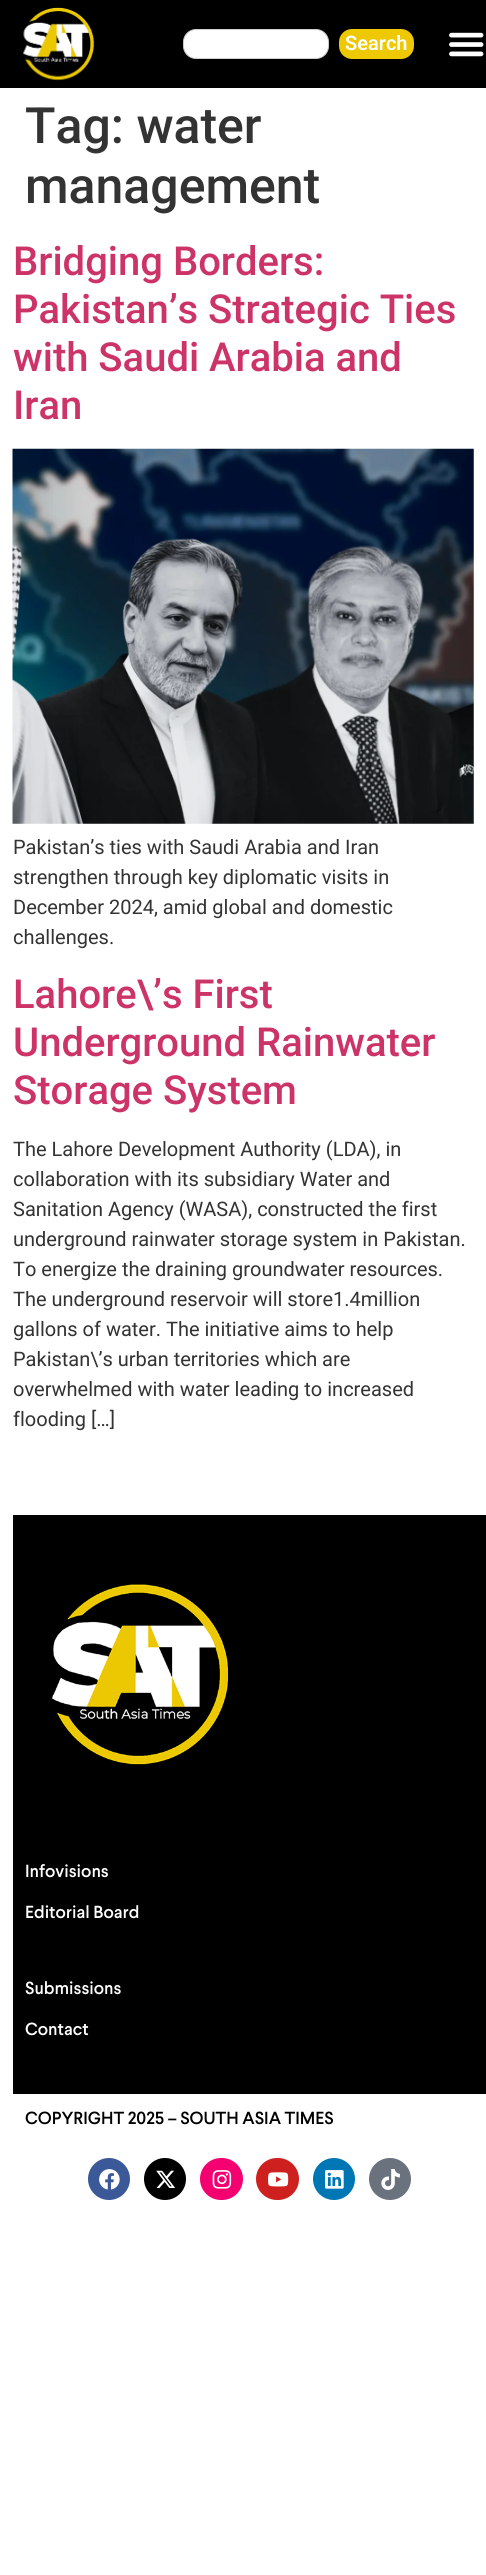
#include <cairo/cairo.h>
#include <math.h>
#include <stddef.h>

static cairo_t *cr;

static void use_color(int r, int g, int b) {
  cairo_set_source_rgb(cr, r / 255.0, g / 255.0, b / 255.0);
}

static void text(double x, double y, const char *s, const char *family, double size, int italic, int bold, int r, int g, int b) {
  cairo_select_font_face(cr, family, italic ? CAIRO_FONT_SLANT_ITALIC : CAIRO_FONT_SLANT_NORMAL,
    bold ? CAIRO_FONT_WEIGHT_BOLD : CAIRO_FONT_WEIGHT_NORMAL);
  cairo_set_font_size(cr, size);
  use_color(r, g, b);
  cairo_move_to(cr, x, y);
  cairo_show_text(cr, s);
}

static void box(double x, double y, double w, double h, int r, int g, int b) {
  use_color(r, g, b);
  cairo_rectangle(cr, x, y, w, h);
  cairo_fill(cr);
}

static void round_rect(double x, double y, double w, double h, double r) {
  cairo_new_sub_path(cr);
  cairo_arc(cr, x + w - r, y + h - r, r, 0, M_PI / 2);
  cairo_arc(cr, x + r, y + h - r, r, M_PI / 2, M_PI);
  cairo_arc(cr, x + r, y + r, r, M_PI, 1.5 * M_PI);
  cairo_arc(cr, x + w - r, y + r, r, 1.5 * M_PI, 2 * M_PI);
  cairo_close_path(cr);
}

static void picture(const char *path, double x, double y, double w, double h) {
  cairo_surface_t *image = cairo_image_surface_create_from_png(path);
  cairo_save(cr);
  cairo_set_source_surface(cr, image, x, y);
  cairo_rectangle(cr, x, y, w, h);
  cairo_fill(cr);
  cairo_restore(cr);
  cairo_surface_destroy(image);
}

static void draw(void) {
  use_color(255, 255, 255);
  cairo_paint(cr);
  box(0, 0, 486, 88, 0, 0, 0);
  picture("img_01.png", 22, 7, 73, 74);
  use_color(255, 255, 255);
  round_rect(183.5, 29.5, 145, 29, 12.5);
  cairo_fill_preserve(cr);
  use_color(205, 205, 205);
  cairo_set_line_width(cr, 1);
  cairo_stroke(cr);
  use_color(237, 200, 3);
  round_rect(339, 29, 75, 30, 13);
  cairo_fill(cr);
  picture("img_02.png", 449, 32, 35, 25);
  picture("img_03.png", 12, 448, 462, 376);
  box(13, 1515, 473, 579, 0, 0, 0);
  picture("img_04.png", 52, 1584, 177, 181);
  use_color(59, 89, 152);
  cairo_arc(cr, 109, 2179, 21, 0, 2 * M_PI);
  cairo_fill(cr);
  picture("img_05.png", 99, 2169, 21, 21);
  use_color(0, 0, 0);
  cairo_arc(cr, 165, 2179, 21, 0, 2 * M_PI);
  cairo_fill(cr);
  picture("img_06.png", 156, 2170, 20, 18);
  use_color(245, 0, 113);
  round_rect(200, 2158, 43, 42, 21);
  cairo_fill(cr);
  picture("img_07.png", 212, 2170, 20, 19);
  use_color(205, 32, 31);
  round_rect(256, 2158, 43, 42, 21);
  cairo_fill(cr);
  picture("img_08.png", 268, 2172, 21, 15);
  use_color(0, 119, 181);
  cairo_arc(cr, 334, 2179, 21, 0, 2 * M_PI);
  cairo_fill(cr);
  picture("img_09.png", 325, 2170, 19, 19);
  use_color(105, 114, 125);
  cairo_arc(cr, 390, 2179, 21, 0, 2 * M_PI);
  cairo_fill(cr);
  picture("img_10.png", 381, 2169, 19, 21);
  text(345, 50, "Search", "Roboto SemiBold", 20, 0, 0, 255, 255, 255);
  text(25, 143, "Tag: water", "Roboto Medium", 50, 0, 0, 51, 51, 51);
  text(25, 203, "management", "Roboto Medium", 50, 0, 0, 51, 51, 51);
  text(13, 275, "Bridging Borders:", "Roboto Medium", 40, 0, 0, 204, 51, 102);
  text(13, 323, "Pakistan’s Strategic Ties", "Roboto Medium", 40, 0, 0, 204, 51, 102);
  text(13, 371, "with Saudi Arabia and", "Roboto Medium", 40, 0, 0, 204, 51, 102);
  text(13, 419, "Iran", "Roboto Medium", 40, 0, 0, 204, 51, 102);
  text(13, 854, "Pakistan’s ties with Saudi Arabia and Iran", "Roboto", 20, 0, 0, 51, 51, 51);
  text(13, 884, "strengthen through key diplomatic visits in", "Roboto", 20, 0, 0, 51, 51, 51);
  text(13, 914, "December 2024, amid global and domestic", "Roboto", 20, 0, 0, 51, 51, 51);
  text(13, 944, "challenges.", "Roboto", 20, 0, 0, 51, 51, 51);
  text(13, 1008, "Lahore\\’s First", "Roboto Medium", 40, 0, 0, 204, 51, 102);
  text(13, 1056, "Underground Rainwater", "Roboto Medium", 40, 0, 0, 204, 51, 102);
  text(13, 1104, "Storage System", "Roboto Medium", 40, 0, 0, 204, 51, 102);
  text(13, 1156, "The Lahore Development Authority (LDA), in", "Roboto", 20, 0, 0, 51, 51, 51);
  text(13, 1186, "collaboration with its subsidiary Water and", "Roboto", 20, 0, 0, 51, 51, 51);
  text(13, 1216, "Sanitation Agency (WASA), constructed the first", "Roboto", 20, 0, 0, 51, 51, 51);
  text(13, 1246, "underground rainwater storage system in Pakistan.", "Roboto", 20, 0, 0, 51, 51, 51);
  text(13, 1276, "To energize the draining groundwater resources.", "Roboto", 20, 0, 0, 51, 51, 51);
  text(13, 1306, "The underground reservoir will store1.4million", "Roboto", 20, 0, 0, 51, 51, 51);
  text(13, 1336, "gallons of water. The initiative aims to help", "Roboto", 20, 0, 0, 51, 51, 51);
  text(13, 1366, "Pakistan\\’s urban territories which are", "Roboto", 20, 0, 0, 51, 51, 51);
  text(13, 1396, "overwhelmed with water leading to increased", "Roboto", 20, 0, 0, 51, 51, 51);
  text(13, 1426, "flooding […]", "Roboto", 20, 0, 0, 51, 51, 51);
  text(25, 1877, "Infovisions", "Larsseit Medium", 17.5, 0, 0, 255, 255, 255);
  text(25, 1918, "Editorial Board", "Larsseit Medium", 17.5, 0, 0, 255, 255, 255);
  text(25, 1994, "Submissions", "Larsseit Medium", 17.5, 0, 0, 255, 255, 255);
  text(25, 2035, "Contact", "Larsseit Medium", 17.5, 0, 0, 255, 255, 255);
  text(25, 2124, "COPYRIGHT 2025 – SOUTH ASIA TIMES", "Larsseit Medium", 17.5, 0, 0, 0, 0, 0);
}

int main(void) {
  cairo_surface_t *surface = cairo_image_surface_create(CAIRO_FORMAT_RGB24, 486, 2575);
  cr = cairo_create(surface);
  cairo_font_options_t *options = cairo_font_options_create();
  cairo_font_options_set_hint_metrics(options, CAIRO_HINT_METRICS_OFF);
  cairo_font_options_set_hint_style(options, CAIRO_HINT_STYLE_NONE);
  cairo_set_font_options(cr, options);
  cairo_set_miter_limit(cr, 4);
  draw();
  cairo_surface_write_to_png(surface, "out.png");
  cairo_font_options_destroy(options);
  cairo_destroy(cr);
  cairo_surface_destroy(surface);
  return 0;
}
